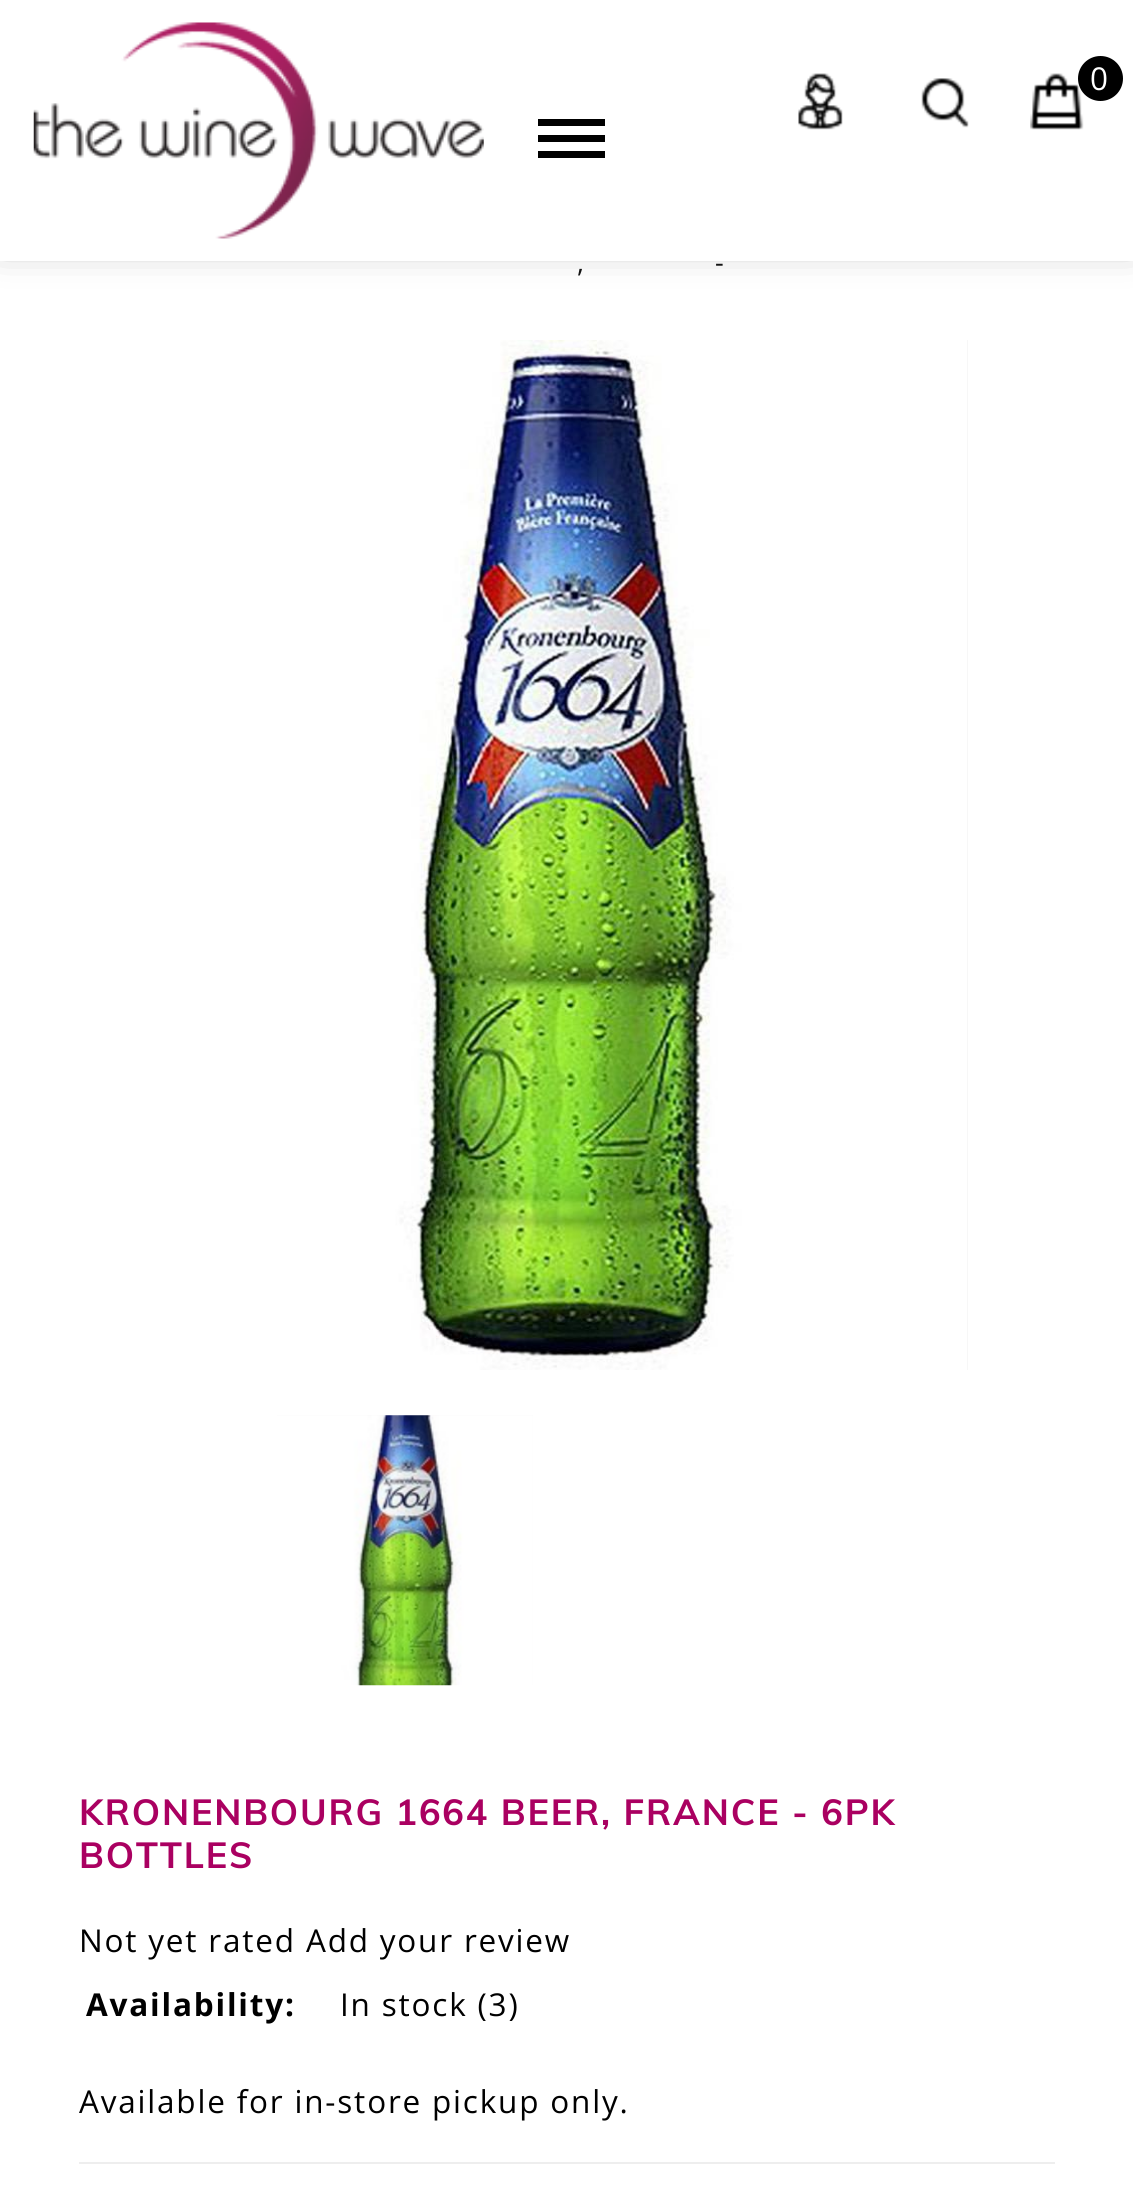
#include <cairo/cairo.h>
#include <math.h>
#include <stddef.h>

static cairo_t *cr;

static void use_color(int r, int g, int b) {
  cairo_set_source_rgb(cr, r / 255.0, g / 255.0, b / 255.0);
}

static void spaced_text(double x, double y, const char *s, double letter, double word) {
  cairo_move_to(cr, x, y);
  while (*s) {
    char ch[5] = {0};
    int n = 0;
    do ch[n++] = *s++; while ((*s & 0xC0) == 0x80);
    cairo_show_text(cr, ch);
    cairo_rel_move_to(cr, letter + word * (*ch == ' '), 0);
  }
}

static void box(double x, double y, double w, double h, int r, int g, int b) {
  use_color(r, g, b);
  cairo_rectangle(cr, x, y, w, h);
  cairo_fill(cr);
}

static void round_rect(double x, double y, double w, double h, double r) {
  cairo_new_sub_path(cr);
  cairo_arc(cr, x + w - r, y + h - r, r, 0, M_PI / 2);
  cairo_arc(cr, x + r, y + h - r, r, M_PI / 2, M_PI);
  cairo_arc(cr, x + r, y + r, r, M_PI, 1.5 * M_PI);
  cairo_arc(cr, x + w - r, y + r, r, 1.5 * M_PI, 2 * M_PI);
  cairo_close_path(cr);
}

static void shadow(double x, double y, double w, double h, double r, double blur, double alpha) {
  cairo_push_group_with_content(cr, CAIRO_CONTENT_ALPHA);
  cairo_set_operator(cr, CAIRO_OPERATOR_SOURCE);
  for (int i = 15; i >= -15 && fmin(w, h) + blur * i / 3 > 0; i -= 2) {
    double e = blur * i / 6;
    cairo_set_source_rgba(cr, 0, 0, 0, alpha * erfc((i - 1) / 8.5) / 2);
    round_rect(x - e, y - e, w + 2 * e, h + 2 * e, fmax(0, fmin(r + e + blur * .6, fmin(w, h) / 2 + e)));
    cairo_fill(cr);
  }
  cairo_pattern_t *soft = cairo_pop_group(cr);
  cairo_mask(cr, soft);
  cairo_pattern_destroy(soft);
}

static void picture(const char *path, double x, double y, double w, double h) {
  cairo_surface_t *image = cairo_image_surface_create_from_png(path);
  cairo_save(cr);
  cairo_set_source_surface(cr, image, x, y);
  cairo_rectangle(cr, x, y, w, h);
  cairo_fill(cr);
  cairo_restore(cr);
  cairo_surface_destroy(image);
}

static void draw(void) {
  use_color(255, 255, 255);
  cairo_paint(cr);
  use_color(0, 0, 0);
  shadow(0, -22, 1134, 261, 0, 20, 0.5);
  box(0, 0, 1133, 261, 255, 255, 255);
  picture("img_01.png", 33, 22, 451, 217);
  box(538, 135, 67, 7, 0, 0, 0);
  box(538, 119, 67, 7, 0, 0, 0);
  box(538, 151, 67, 7, 0, 0, 0);
  picture("img_02.png", 798, 73, 45, 57);
  picture("img_03.png", 921, 78, 48, 50);
  picture("img_04.png", 1030, 73, 54, 57);
  cairo_arc(cr, 1100.5, 78.5, 22.5, 0, 2 * M_PI);
  cairo_fill(cr);
  picture("img_05.png", 162, 340, 805, 1030);
  box(967, 340, 1, 1030, 247, 247, 247);
  box(277, 1415, 256, 270, 247, 247, 247);
  picture("img_06.png", 277, 1415, 256, 271);
  box(79, 2162, 976, 2, 238, 238, 238);
  cairo_select_font_face(cr, "Open Sans", CAIRO_FONT_SLANT_NORMAL, CAIRO_FONT_WEIGHT_NORMAL);
  cairo_set_font_size(cr, 31.5);
  use_color(255, 255, 255);
  spaced_text(1090, 90, "0", 1.8, 0);
  cairo_set_font_size(cr, 27);
  use_color(20, 20, 20);
  spaced_text(715, 272, "-", 1.8, 0);
  spaced_text(577, 272, ",", 1.8, 0);
  cairo_select_font_face(cr, "Muli", CAIRO_FONT_SLANT_NORMAL, CAIRO_FONT_WEIGHT_BOLD);
  cairo_set_font_size(cr, 36);
  use_color(170, 0, 97);
  spaced_text(79, 1825, "KRONENBOURG 1664 BEER, FRANCE - 6PK", 1.8, 0);
  spaced_text(79, 1868, "BOTTLES", 1.8, 0);
  cairo_select_font_face(cr, "Open Sans", CAIRO_FONT_SLANT_NORMAL, CAIRO_FONT_WEIGHT_NORMAL);
  cairo_set_font_size(cr, 31.5);
  use_color(0, 0, 0);
  spaced_text(79, 1952, "Not yet rated Add your review", 1.8, 0);
  cairo_select_font_face(cr, "Open Sans", CAIRO_FONT_SLANT_NORMAL, CAIRO_FONT_WEIGHT_BOLD);
  spaced_text(86, 2016, "Availability:", 1.8, 0);
  cairo_select_font_face(cr, "Open Sans", CAIRO_FONT_SLANT_NORMAL, CAIRO_FONT_WEIGHT_NORMAL);
  spaced_text(340, 2016, "In stock (3)", 1.8, 0);
  spaced_text(79, 2113, "Available for in-store pickup only.", 1.8, 0);
}

int main(void) {
  cairo_surface_t *surface = cairo_image_surface_create(CAIRO_FORMAT_RGB24, 1133, 2189);
  cr = cairo_create(surface);
  cairo_font_options_t *options = cairo_font_options_create();
  cairo_font_options_set_hint_metrics(options, CAIRO_HINT_METRICS_OFF);
  cairo_font_options_set_hint_style(options, CAIRO_HINT_STYLE_NONE);
  cairo_set_font_options(cr, options);
  cairo_set_miter_limit(cr, 4);
  draw();
  cairo_surface_write_to_png(surface, "out.png");
  cairo_font_options_destroy(options);
  cairo_destroy(cr);
  cairo_surface_destroy(surface);
  return 0;
}
